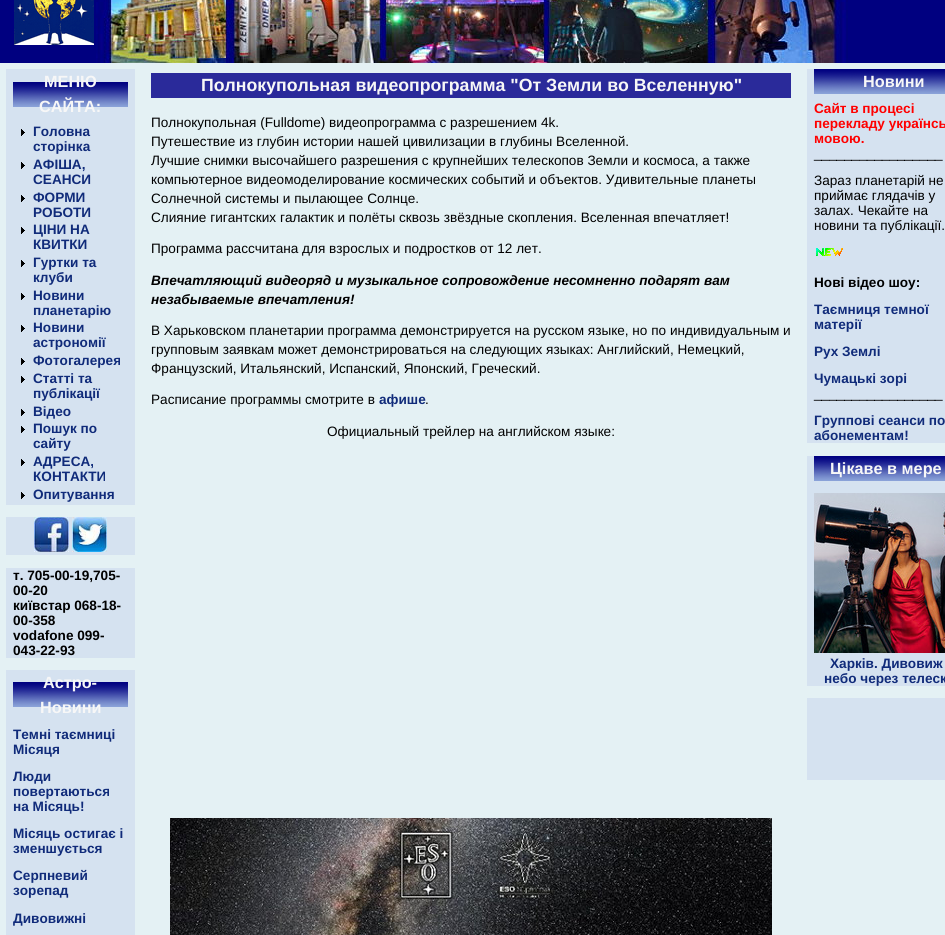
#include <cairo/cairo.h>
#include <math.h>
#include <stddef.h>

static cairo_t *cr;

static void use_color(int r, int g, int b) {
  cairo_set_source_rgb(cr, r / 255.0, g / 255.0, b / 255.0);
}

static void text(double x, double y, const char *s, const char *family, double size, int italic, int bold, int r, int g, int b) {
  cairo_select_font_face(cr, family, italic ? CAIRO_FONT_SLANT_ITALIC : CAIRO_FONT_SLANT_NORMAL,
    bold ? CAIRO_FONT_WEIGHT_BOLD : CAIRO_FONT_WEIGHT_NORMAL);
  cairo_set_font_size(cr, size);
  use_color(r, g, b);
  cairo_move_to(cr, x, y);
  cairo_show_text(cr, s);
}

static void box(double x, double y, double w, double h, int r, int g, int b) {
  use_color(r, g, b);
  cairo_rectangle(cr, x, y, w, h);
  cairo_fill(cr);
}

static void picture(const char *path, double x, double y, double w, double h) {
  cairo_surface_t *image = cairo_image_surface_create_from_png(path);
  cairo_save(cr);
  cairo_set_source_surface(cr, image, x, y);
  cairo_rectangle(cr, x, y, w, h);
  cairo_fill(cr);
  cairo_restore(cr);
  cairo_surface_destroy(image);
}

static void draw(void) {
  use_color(228, 241, 244);
  cairo_paint(cr);
  box(0, 0, 945, 63, 0, 0, 128);
  picture("img_01.png", 96, 0, 752, 63);
  picture("img_02.png", 14, 0, 80, 45);
  box(6, 69, 129, 436, 213, 226, 240);
  picture("img_03.png", 13, 82, 115, 25);
  picture("img_04.png", 21, 129, 4, 7);
  picture("img_04.png", 21, 162, 4, 7);
  picture("img_04.png", 21, 195, 4, 7);
  picture("img_04.png", 21, 227, 4, 7);
  picture("img_04.png", 21, 260, 4, 7);
  picture("img_04.png", 21, 293, 4, 7);
  picture("img_04.png", 21, 325, 4, 7);
  picture("img_04.png", 21, 358, 4, 7);
  picture("img_04.png", 21, 376, 4, 7);
  picture("img_04.png", 21, 409, 4, 7);
  picture("img_04.png", 21, 426, 4, 7);
  picture("img_04.png", 21, 459, 4, 7);
  picture("img_04.png", 21, 492, 4, 7);
  box(6, 517, 129, 38, 213, 226, 240);
  picture("img_05.png", 34, 517, 35, 35);
  picture("img_06.png", 72, 517, 35, 35);
  box(6, 568, 129, 90, 213, 226, 240);
  box(6, 670, 129, 265, 213, 226, 240);
  picture("img_03.png", 13, 682, 115, 25);
  box(151, 73, 640, 25, 42, 42, 154);
  picture("img_07.png", 170, 818, 602, 117);
  box(807, 69, 138, 374, 213, 226, 240);
  picture("img_08.png", 814, 69, 131, 25);
  picture("img_09.png", 816, 248, 27, 8);
  box(807, 456, 138, 230, 213, 226, 240);
  picture("img_08.png", 814, 456, 131, 25);
  picture("img_10.png", 814, 493, 131, 160);
  box(807, 698, 138, 82, 213, 226, 240);
  text(44, 87, "МЕНЮ", "Liberation Sans", 16.25, 0, 1, 247, 247, 247);
  text(39, 112, "САЙТА:", "Liberation Sans", 16.25, 0, 1, 247, 247, 247);
  text(33, 136, "Головна", "Liberation Sans", 13.6, 0, 1, 16, 43, 122);
  text(33, 151, "сторінка", "Liberation Sans", 13.6, 0, 1, 16, 43, 122);
  text(33, 169, "АФІША,", "Liberation Sans", 13.6, 0, 1, 16, 43, 122);
  text(33, 184, "СЕАНСИ", "Liberation Sans", 13.6, 0, 1, 16, 43, 122);
  text(33, 202, "ФОРМИ", "Liberation Sans", 13.6, 0, 1, 16, 43, 122);
  text(33, 217, "РОБОТИ", "Liberation Sans", 13.6, 0, 1, 16, 43, 122);
  text(33, 234, "ЦІНИ НА", "Liberation Sans", 13.6, 0, 1, 16, 43, 122);
  text(33, 249, "КВИТКИ", "Liberation Sans", 13.6, 0, 1, 16, 43, 122);
  text(33, 267, "Гуртки та", "Liberation Sans", 13.6, 0, 1, 16, 43, 122);
  text(33, 282, "клуби", "Liberation Sans", 13.6, 0, 1, 16, 43, 122);
  text(33, 300, "Новини", "Liberation Sans", 13.6, 0, 1, 16, 43, 122);
  text(33, 315, "планетарію", "Liberation Sans", 13.6, 0, 1, 16, 43, 122);
  text(33, 332, "Новини", "Liberation Sans", 13.6, 0, 1, 16, 43, 122);
  text(33, 347, "астрономії", "Liberation Sans", 13.6, 0, 1, 16, 43, 122);
  text(33, 365, "Фотогалерея", "Liberation Sans", 13.6, 0, 1, 16, 43, 122);
  text(33, 383, "Статті та", "Liberation Sans", 13.6, 0, 1, 16, 43, 122);
  text(33, 398, "публікації", "Liberation Sans", 13.6, 0, 1, 16, 43, 122);
  text(33, 416, "Відео", "Liberation Sans", 13.6, 0, 1, 16, 43, 122);
  text(33, 433, "Пошук по", "Liberation Sans", 13.6, 0, 1, 16, 43, 122);
  text(33, 448, "сайту", "Liberation Sans", 13.6, 0, 1, 16, 43, 122);
  text(33, 466, "АДРЕСА,", "Liberation Sans", 13.6, 0, 1, 16, 43, 122);
  text(33, 481, "КОНТАКТИ", "Liberation Sans", 13.6, 0, 1, 16, 43, 122);
  text(33, 499, "Опитування", "Liberation Sans", 13.6, 0, 1, 16, 43, 122);
  text(13, 580, "т. 705-00-19,705-", "Liberation Sans", 13.6, 0, 1, 0, 0, 0);
  text(13, 595, "00-20", "Liberation Sans", 13.6, 0, 1, 0, 0, 0);
  text(13, 610, "київстар 068-18-", "Liberation Sans", 13.6, 0, 1, 0, 0, 0);
  text(13, 625, "00-358", "Liberation Sans", 13.6, 0, 1, 0, 0, 0);
  text(13, 640, "vodafone 099-", "Liberation Sans", 13.6, 0, 1, 0, 0, 0);
  text(13, 655, "043-22-93", "Liberation Sans", 13.6, 0, 1, 0, 0, 0);
  text(43, 688, "Астро-", "Liberation Sans", 16.25, 0, 1, 247, 247, 247);
  text(40, 713, "Новини", "Liberation Sans", 16.25, 0, 1, 247, 247, 247);
  text(13, 739, "Темні таємниці", "Liberation Sans", 13.6, 0, 1, 16, 43, 122);
  text(13, 754, "Місяця", "Liberation Sans", 13.6, 0, 1, 16, 43, 122);
  text(13, 781, "Люди", "Liberation Sans", 13.6, 0, 1, 16, 43, 122);
  text(13, 796, "повертаються", "Liberation Sans", 13.6, 0, 1, 16, 43, 122);
  text(13, 811, "на Місяць!", "Liberation Sans", 13.6, 0, 1, 16, 43, 122);
  text(13, 838, "Місяць остигає і", "Liberation Sans", 13.6, 0, 1, 16, 43, 122);
  text(13, 853, "зменшується", "Liberation Sans", 13.6, 0, 1, 16, 43, 122);
  text(13, 880, "Серпневий", "Liberation Sans", 13.6, 0, 1, 16, 43, 122);
  text(13, 895, "зорепад", "Liberation Sans", 13.6, 0, 1, 16, 43, 122);
  text(13, 923, "Дивовижні", "Liberation Sans", 13.6, 0, 1, 16, 43, 122);
  text(201, 91, "Полнокупольная видеопрограмма \"От Земли во Вселенную\"", "Liberation Sans", 17.7, 0, 1, 247, 247, 247);
  text(151, 127, "Полнокупольная (Fulldome) видеопрограмма с разрешением 4k.", "Liberation Sans", 13.6, 0, 0, 0, 0, 0);
  text(151, 146, "Путешествие из глубин истории нашей цивилизации в глубины Вселенной.", "Liberation Sans", 13.6, 0, 0, 0, 0, 0);
  text(151, 165, "Лучшие снимки высочайшего разрешения с крупнейших телескопов Земли и космоса, а также", "Liberation Sans", 13.6, 0, 0, 0, 0, 0);
  text(151, 184, "компьютерное видеомоделирование космических событий и объектов. Удивительные планеты", "Liberation Sans", 13.6, 0, 0, 0, 0, 0);
  text(151, 203, "Солнечной системы и пылающее Солнце.", "Liberation Sans", 13.6, 0, 0, 0, 0, 0);
  text(151, 222, "Слияние гигантских галактик и полёты сквозь звёздные скопления. Вселенная впечатляет!", "Liberation Sans", 13.6, 0, 0, 0, 0, 0);
  text(151, 253, "Программа рассчитана для взрослых и подростков от 12 лет.", "Liberation Sans", 13.6, 0, 0, 0, 0, 0);
  text(151, 285, "Впечатляющий видеоряд и музыкальное сопровождение несомненно подарят вам", "Liberation Sans", 13.6, 1, 1, 0, 0, 0);
  text(151, 304, "незабываемые впечатления!", "Liberation Sans", 13.6, 1, 1, 0, 0, 0);
  text(151, 335, "В Харьковском планетарии программа демонстрируется на русском языке, но по индивидуальным и", "Liberation Sans", 13.6, 0, 0, 0, 0, 0);
  text(151, 354, "групповым заявкам может демонстрироваться на следующих языках: Английский, Немецкий,", "Liberation Sans", 13.6, 0, 0, 0, 0, 0);
  text(151, 373, "Французский, Итальянский, Испанский, Японский, Греческий.", "Liberation Sans", 13.6, 0, 0, 0, 0, 0);
  text(151, 404, "Расписание программы смотрите в", "Liberation Sans", 13.6, 0, 0, 0, 0, 0);
  text(379, 404, "афише", "Liberation Sans", 13.6, 0, 1, 16, 43, 122);
  text(425, 404, ".", "Liberation Sans", 13.6, 0, 0, 0, 0, 0);
  text(327, 436, "Официальный трейлер на английском языке:", "Liberation Sans", 13.6, 0, 0, 0, 0, 0);
  text(863, 87, "Новини", "Liberation Sans", 16.25, 0, 1, 247, 247, 247);
  text(814, 113, "Сайт в процесі", "Liberation Sans", 13.6, 0, 1, 255, 0, 0);
  text(814, 128, "перекладу українсь", "Liberation Sans", 13.6, 0, 1, 255, 0, 0);
  text(814, 143, "мовою.", "Liberation Sans", 13.6, 0, 1, 255, 0, 0);
  text(814, 158, "_________________", "Liberation Sans", 13.6, 0, 0, 0, 0, 0);
  text(814, 185, "Зараз планетарій не", "Liberation Sans", 13.6, 0, 0, 0, 0, 0);
  text(814, 200, "приймає глядачів у", "Liberation Sans", 13.6, 0, 0, 0, 0, 0);
  text(814, 215, "залах. Чекайте на", "Liberation Sans", 13.6, 0, 0, 0, 0, 0);
  text(814, 230, "новини та публікації.", "Liberation Sans", 13.6, 0, 0, 0, 0, 0);
  text(814, 287, "Нові відео шоу:", "Liberation Sans", 13.6, 0, 1, 0, 0, 0);
  text(814, 314, "Таємниця темної", "Liberation Sans", 13.6, 0, 1, 16, 43, 122);
  text(814, 329, "матерії", "Liberation Sans", 13.6, 0, 1, 16, 43, 122);
  text(814, 356, "Рух Землі", "Liberation Sans", 13.6, 0, 1, 16, 43, 122);
  text(814, 383, "Чумацькі зорі", "Liberation Sans", 13.6, 0, 1, 16, 43, 122);
  text(814, 398, "_________________", "Liberation Sans", 13.6, 0, 0, 0, 0, 0);
  text(814, 425, "Группові сеанси по", "Liberation Sans", 13.6, 0, 1, 16, 43, 122);
  text(814, 440, "абонементам!", "Liberation Sans", 13.6, 0, 1, 16, 43, 122);
  text(830, 474, "Цікаве в мере", "Liberation Sans", 16.25, 0, 1, 247, 247, 247);
  text(830, 668, "Харків. Дивовиж", "Liberation Sans", 13.6, 0, 1, 16, 43, 122);
  text(824, 683, "небо через телеск", "Liberation Sans", 13.6, 0, 1, 16, 43, 122);
}

int main(void) {
  cairo_surface_t *surface = cairo_image_surface_create(CAIRO_FORMAT_RGB24, 945, 935);
  cr = cairo_create(surface);
  cairo_font_options_t *options = cairo_font_options_create();
  cairo_font_options_set_hint_metrics(options, CAIRO_HINT_METRICS_OFF);
  cairo_font_options_set_hint_style(options, CAIRO_HINT_STYLE_NONE);
  cairo_set_font_options(cr, options);
  cairo_set_miter_limit(cr, 4);
  draw();
  cairo_surface_write_to_png(surface, "out.png");
  cairo_font_options_destroy(options);
  cairo_destroy(cr);
  cairo_surface_destroy(surface);
  return 0;
}
